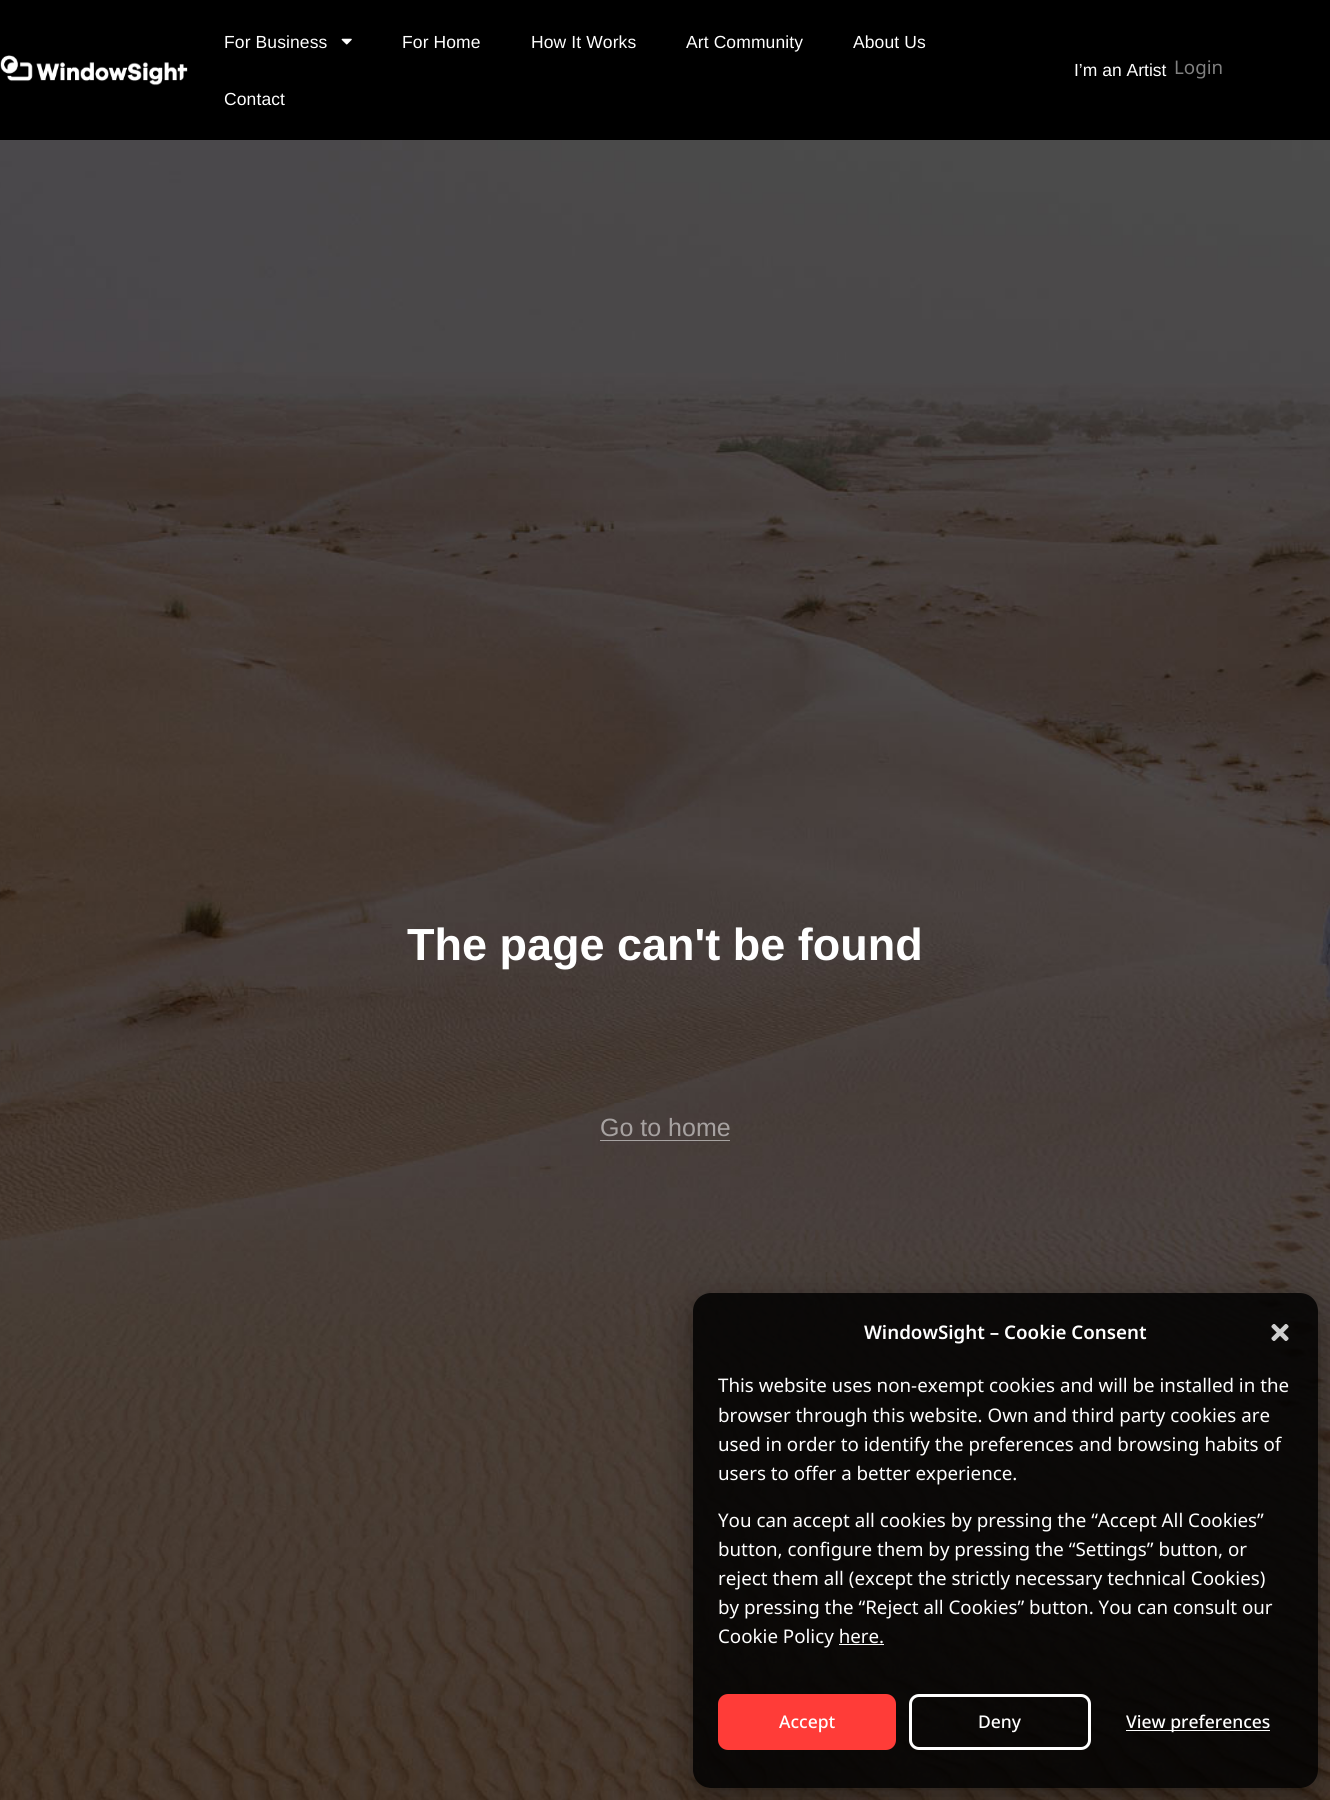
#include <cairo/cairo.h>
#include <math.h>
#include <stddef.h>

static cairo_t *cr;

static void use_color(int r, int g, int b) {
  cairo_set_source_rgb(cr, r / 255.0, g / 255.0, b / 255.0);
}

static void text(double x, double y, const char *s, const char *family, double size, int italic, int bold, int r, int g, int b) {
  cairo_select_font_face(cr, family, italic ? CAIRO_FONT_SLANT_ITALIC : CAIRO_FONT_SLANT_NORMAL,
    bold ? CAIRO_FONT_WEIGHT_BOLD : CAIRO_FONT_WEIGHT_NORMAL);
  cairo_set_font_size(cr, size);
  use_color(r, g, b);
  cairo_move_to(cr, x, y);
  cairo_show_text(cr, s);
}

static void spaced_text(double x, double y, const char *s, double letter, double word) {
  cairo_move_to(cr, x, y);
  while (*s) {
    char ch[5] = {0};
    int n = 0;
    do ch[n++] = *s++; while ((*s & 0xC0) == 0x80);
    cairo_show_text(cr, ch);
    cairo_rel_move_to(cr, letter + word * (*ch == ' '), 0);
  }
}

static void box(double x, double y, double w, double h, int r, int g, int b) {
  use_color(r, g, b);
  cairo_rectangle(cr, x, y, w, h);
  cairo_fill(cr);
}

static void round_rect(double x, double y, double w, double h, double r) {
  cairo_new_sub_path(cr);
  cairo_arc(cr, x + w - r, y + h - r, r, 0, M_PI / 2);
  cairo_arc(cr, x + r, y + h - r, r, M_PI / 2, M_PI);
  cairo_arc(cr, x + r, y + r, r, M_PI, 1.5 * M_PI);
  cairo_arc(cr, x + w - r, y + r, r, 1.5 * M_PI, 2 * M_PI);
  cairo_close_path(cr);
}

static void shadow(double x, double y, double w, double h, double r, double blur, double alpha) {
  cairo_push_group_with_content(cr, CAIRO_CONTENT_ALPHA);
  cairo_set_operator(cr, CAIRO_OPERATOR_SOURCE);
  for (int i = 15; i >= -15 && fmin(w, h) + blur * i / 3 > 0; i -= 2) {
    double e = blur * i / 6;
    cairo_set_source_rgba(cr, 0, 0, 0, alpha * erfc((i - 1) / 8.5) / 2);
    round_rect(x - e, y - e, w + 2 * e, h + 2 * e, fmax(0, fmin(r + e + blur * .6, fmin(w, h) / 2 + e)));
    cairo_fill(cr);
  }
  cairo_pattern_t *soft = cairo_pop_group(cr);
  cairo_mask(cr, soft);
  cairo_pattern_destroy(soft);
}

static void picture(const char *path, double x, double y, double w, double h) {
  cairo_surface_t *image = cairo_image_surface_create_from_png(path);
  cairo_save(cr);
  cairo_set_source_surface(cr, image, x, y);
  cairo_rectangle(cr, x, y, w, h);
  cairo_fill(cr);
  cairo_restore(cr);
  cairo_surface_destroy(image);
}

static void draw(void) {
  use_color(0, 0, 0);
  cairo_paint(cr);
  picture("img_01.png", 0, 55, 188, 31);
  picture("img_02.png", 341, 38, 11, 7);
  picture("img_03.png", 0, 140, 1330, 1660);
  cairo_set_source_rgba(cr, 1, 1, 1, 0.52);
  cairo_rectangle(cr, 600, 1140, 130, 1);
  cairo_fill(cr);
  cairo_save(cr);
  cairo_set_fill_rule(cr, CAIRO_FILL_RULE_EVEN_ODD);
  cairo_new_path(cr);
  cairo_move_to(cr, 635, 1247);
  cairo_line_to(cr, 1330, 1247);
  cairo_line_to(cr, 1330, 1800);
  cairo_line_to(cr, 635, 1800);
  cairo_close_path(cr);
  cairo_move_to(cr, 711, 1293);
  cairo_line_to(cr, 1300, 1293);
  cairo_curve_to(cr, 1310, 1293, 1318, 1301, 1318, 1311);
  cairo_line_to(cr, 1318, 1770);
  cairo_curve_to(cr, 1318, 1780, 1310, 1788, 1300, 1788);
  cairo_line_to(cr, 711, 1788);
  cairo_curve_to(cr, 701, 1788, 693, 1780, 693, 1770);
  cairo_line_to(cr, 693, 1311);
  cairo_curve_to(cr, 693, 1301, 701, 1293, 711, 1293);
  cairo_close_path(cr);
  cairo_clip(cr);
  use_color(0, 0, 0);
  shadow(693, 1305, 625, 495, 18, 19, 0.4);
  cairo_restore(cr);
  cairo_set_source_rgba(cr, 0, 0, 0, 0.85);
  round_rect(693, 1293, 625, 495, 18);
  cairo_fill(cr);
  picture("img_04.png", 1271, 1324, 18, 17);
  box(839, 1644, 45, 1, 255, 255, 255);
  use_color(255, 60, 56);
  round_rect(718, 1694, 178, 56, 10);
  cairo_fill(cr);
  round_rect(910.5, 1695.5, 179, 53, 8.5);
  use_color(255, 255, 255);
  cairo_set_line_width(cr, 3);
  cairo_stroke(cr);
  box(1126, 1730, 144, 1, 255, 255, 255);
  cairo_select_font_face(cr, "Liberation Sans", CAIRO_FONT_SLANT_NORMAL, CAIRO_FONT_WEIGHT_NORMAL);
  cairo_set_font_size(cr, 17.5);
  spaced_text(224, 48, "For Business", 0.1, 0);
  spaced_text(402, 48, "For Home", 0.1, 0);
  spaced_text(531, 48, "How It Works", 0.1, 0);
  spaced_text(686, 48, "Art Community", 0.1, 0);
  spaced_text(853, 48, "About Us", 0.1, 0);
  spaced_text(224, 105, "Contact", 0.1, 0);
  text(1074, 76, "I’m an Artist", "Liberation Sans", 17.5, 0, 0, 255, 255, 255);
  text(1174, 74, "Login", "Noto Sans", 18.75, 0, 0, 128, 128, 128);
  text(407, 960, "The page can't be found", "Liberation Sans", 45, 0, 1, 255, 255, 255);
  text(600, 1136, "Go to home", "Liberation Sans", 25, 0, 0, 167, 162, 161);
  text(864, 1339, "WindowSight – Cookie Consent", "Noto Sans SemiBold", 18.75, 0, 0, 255, 255, 255);
  text(718, 1392, "This website uses non-exempt cookies and will be installed in the", "Noto Sans", 18.75, 0, 0, 255, 255, 255);
  text(718, 1422, "browser through this website. Own and third party cookies are", "Noto Sans", 18.75, 0, 0, 255, 255, 255);
  text(718, 1451, "used in order to identify the preferences and browsing habits of", "Noto Sans", 18.75, 0, 0, 255, 255, 255);
  text(718, 1480, "users to offer a better experience.", "Noto Sans", 18.75, 0, 0, 255, 255, 255);
  text(718, 1527, "You can accept all cookies by pressing the “Accept All Cookies”", "Noto Sans", 18.75, 0, 0, 255, 255, 255);
  text(718, 1556, "button, configure them by pressing the “Settings” button, or", "Noto Sans", 18.75, 0, 0, 255, 255, 255);
  text(718, 1585, "reject them all (except the strictly necessary technical Cookies)", "Noto Sans", 18.75, 0, 0, 255, 255, 255);
  text(718, 1614, "by pressing the “Reject all Cookies” button. You can consult our", "Noto Sans", 18.75, 0, 0, 255, 255, 255);
  text(718, 1643, "Cookie Policy here.", "Noto Sans", 18.75, 0, 0, 255, 255, 255);
  text(779, 1728, "Accept", "Noto Sans Medium", 17.5, 0, 0, 255, 255, 255);
  text(978, 1728, "Deny", "Noto Sans Medium", 17.5, 0, 0, 255, 255, 255);
  text(1126, 1728, "View preferences", "Noto Sans Medium", 17.5, 0, 0, 255, 255, 255);
}

int main(void) {
  cairo_surface_t *surface = cairo_image_surface_create(CAIRO_FORMAT_RGB24, 1330, 1800);
  cr = cairo_create(surface);
  cairo_font_options_t *options = cairo_font_options_create();
  cairo_font_options_set_hint_metrics(options, CAIRO_HINT_METRICS_OFF);
  cairo_font_options_set_hint_style(options, CAIRO_HINT_STYLE_NONE);
  cairo_set_font_options(cr, options);
  cairo_set_miter_limit(cr, 4);
  draw();
  cairo_surface_write_to_png(surface, "out.png");
  cairo_font_options_destroy(options);
  cairo_destroy(cr);
  cairo_surface_destroy(surface);
  return 0;
}
